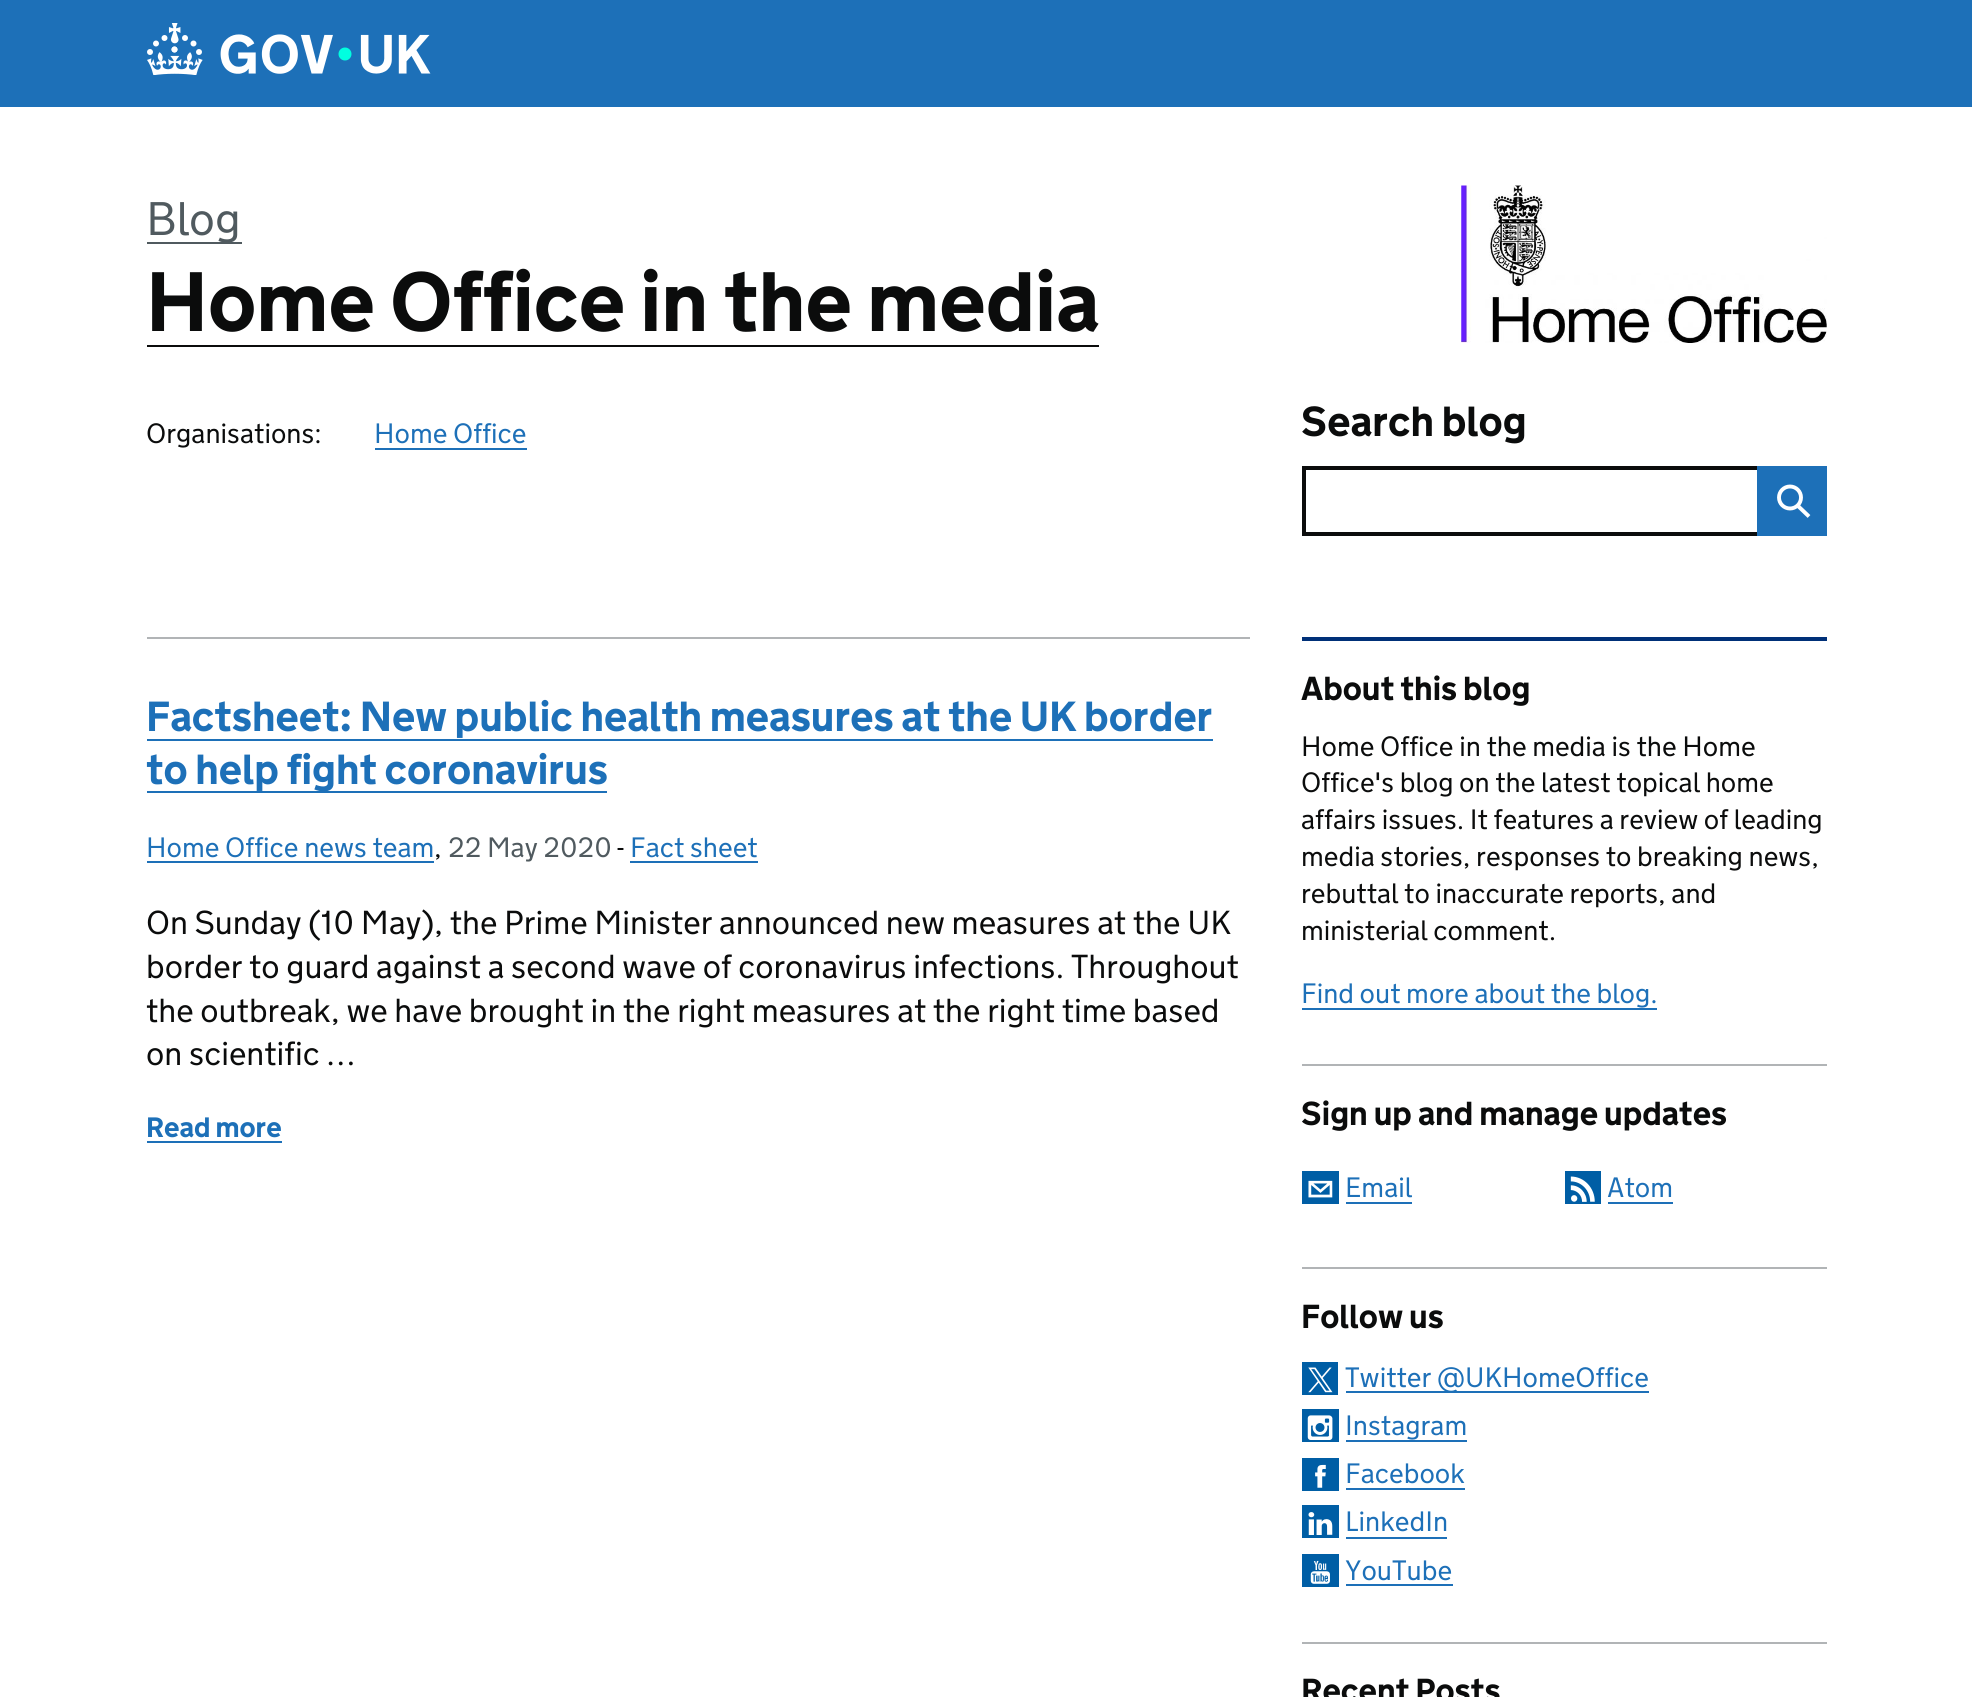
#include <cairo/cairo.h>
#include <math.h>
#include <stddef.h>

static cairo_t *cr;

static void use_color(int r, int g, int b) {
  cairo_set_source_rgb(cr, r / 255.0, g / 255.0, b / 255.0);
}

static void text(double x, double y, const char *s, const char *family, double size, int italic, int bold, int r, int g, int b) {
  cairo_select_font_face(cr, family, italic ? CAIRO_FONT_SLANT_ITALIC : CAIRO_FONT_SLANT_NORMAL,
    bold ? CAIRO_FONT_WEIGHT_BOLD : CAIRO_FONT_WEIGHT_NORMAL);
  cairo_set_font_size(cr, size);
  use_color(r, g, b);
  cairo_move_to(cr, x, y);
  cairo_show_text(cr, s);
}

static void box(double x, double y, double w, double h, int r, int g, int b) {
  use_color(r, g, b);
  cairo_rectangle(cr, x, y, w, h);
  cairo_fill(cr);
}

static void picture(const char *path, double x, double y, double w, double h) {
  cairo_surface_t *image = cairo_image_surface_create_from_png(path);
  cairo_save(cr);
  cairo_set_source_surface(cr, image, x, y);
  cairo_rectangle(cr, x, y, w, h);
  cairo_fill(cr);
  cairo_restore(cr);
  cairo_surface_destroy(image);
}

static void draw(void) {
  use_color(255, 255, 255);
  cairo_paint(cr);
  box(0, 0, 1972, 107, 29, 112, 184);
  picture("img_01.png", 147, 23, 284, 52);
  box(147, 242, 95, 2, 80, 90, 95);
  box(147, 345, 952, 2, 11, 12, 12);
  box(375, 448, 152, 2, 29, 112, 184);
  picture("img_02.png", 1461, 185, 366, 158);
  box(1302, 466, 455, 4, 11, 12, 12);
  box(1302, 532, 455, 4, 11, 12, 12);
  box(1302, 466, 4, 70, 11, 12, 12);
  box(1757, 466, 70, 70, 29, 112, 184);
  cairo_arc(cr, 1790, 497.5, 11, 0, 2 * M_PI);
  use_color(255, 255, 255);
  cairo_set_line_width(cr, 3.9);
  cairo_stroke(cr);
  cairo_new_path(cr);
  cairo_move_to(cr, 1797.5, 505.5);
  cairo_line_to(cr, 1809, 516.5);
  cairo_stroke(cr);
  box(147, 637, 1103, 2, 177, 180, 182);
  box(147, 739, 1066, 2, 29, 112, 184);
  box(147, 791, 460, 2, 29, 112, 184);
  box(147, 861, 287, 2, 29, 112, 184);
  box(630, 861, 128, 2, 29, 112, 184);
  box(147, 1141, 135, 2, 29, 112, 184);
  box(1302, 637, 525, 4, 0, 48, 120);
  box(1302, 1008, 355, 2, 29, 112, 184);
  box(1302, 1064, 525, 2, 177, 180, 182);
  picture("img_03.png", 1302, 1171, 37, 33);
  box(1346, 1202, 66, 2, 29, 112, 184);
  picture("img_04.png", 1565, 1171, 36, 33);
  box(1608, 1202, 65, 2, 29, 112, 184);
  box(1302, 1267, 525, 2, 177, 180, 182);
  picture("img_05.png", 1302, 1362, 36, 33);
  box(1346, 1391, 303, 2, 29, 112, 184);
  picture("img_06.png", 1302, 1409, 37, 33);
  box(1346, 1440, 121, 2, 29, 112, 184);
  picture("img_07.png", 1302, 1458, 37, 33);
  box(1346, 1488, 119, 2, 29, 112, 184);
  picture("img_08.png", 1302, 1505, 37, 33);
  box(1346, 1537, 101, 2, 29, 112, 184);
  picture("img_09.png", 1302, 1554, 37, 33);
  box(1346, 1584, 107, 2, 29, 112, 184);
  box(1302, 1642, 525, 2, 177, 180, 182);
  text(146, 235, "Blog", "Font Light", 47, 0, 0, 80, 90, 95);
  text(146, 331, "Home Office in the media", "Font", 84, 0, 1, 11, 12, 12);
  text(146, 443, "Organisations:", "Font Light", 28, 0, 0, 11, 12, 12);
  text(374, 443, "Home Office", "Font Light", 28, 0, 0, 29, 112, 184);
  text(1301, 436, "Search blog", "Font", 42, 0, 1, 11, 12, 12);
  text(146, 731, "Factsheet: New public health measures at the UK border", "Font", 42, 0, 1, 29, 112, 184);
  text(146, 784, "to help fight coronavirus", "Font", 42, 0, 1, 29, 112, 184);
  text(146, 857, "Home Office news team", "Font Light", 28, 0, 0, 29, 112, 184);
  text(448, 857, "22 May 2020", "Font Light", 28, 0, 0, 80, 90, 95);
  text(617, 857, "-", "Font Light", 28, 0, 0, 11, 12, 12);
  text(630, 857, "Fact sheet", "Font Light", 28, 0, 0, 29, 112, 184);
  text(434, 857, ",", "Font Light", 28, 0, 0, 11, 12, 12);
  text(146, 934, "On Sunday (10 May), the Prime Minister announced new measures at the UK", "Font Light", 33.25, 0, 0, 11, 12, 12);
  text(146, 978, "border to guard against a second wave of coronavirus infections. Throughout", "Font Light", 33.25, 0, 0, 11, 12, 12);
  text(146, 1022, "the outbreak, we have brought in the right measures at the right time based", "Font Light", 33.25, 0, 0, 11, 12, 12);
  text(146, 1065, "on scientific …", "Font Light", 33.25, 0, 0, 11, 12, 12);
  text(146, 1137, "Read more", "Font", 28, 0, 1, 29, 112, 184);
  text(1301, 700, "About this blog", "Font", 33.25, 0, 1, 11, 12, 12);
  text(1301, 756, "Home Office in the media is the Home", "Font Light", 28, 0, 0, 11, 12, 12);
  text(1301, 792, "Office's blog on the latest topical home", "Font Light", 28, 0, 0, 11, 12, 12);
  text(1301, 829, "affairs issues. It features a review of leading", "Font Light", 28, 0, 0, 11, 12, 12);
  text(1301, 866, "media stories, responses to breaking news,", "Font Light", 28, 0, 0, 11, 12, 12);
  text(1301, 903, "rebuttal to inaccurate reports, and", "Font Light", 28, 0, 0, 11, 12, 12);
  text(1301, 940, "ministerial comment.", "Font Light", 28, 0, 0, 11, 12, 12);
  text(1301, 1003, "Find out more about the blog.", "Font Light", 28, 0, 0, 29, 112, 184);
  text(1301, 1125, "Sign up and manage updates", "Font", 33.25, 0, 1, 11, 12, 12);
  text(1345, 1197, "Email", "Font Light", 28, 0, 0, 29, 112, 184);
  text(1607, 1197, "Atom", "Font Light", 28, 0, 0, 29, 112, 184);
  text(1301, 1328, "Follow us", "Font", 33.25, 0, 1, 11, 12, 12);
  text(1345, 1387, "Twitter @UKHomeOffice", "Font Light", 28, 0, 0, 29, 112, 184);
  text(1345, 1435, "Instagram", "Font Light", 28, 0, 0, 29, 112, 184);
  text(1345, 1483, "Facebook", "Font Light", 28, 0, 0, 29, 112, 184);
  text(1345, 1531, "LinkedIn", "Font Light", 28, 0, 0, 29, 112, 184);
  text(1345, 1580, "YouTube", "Font Light", 28, 0, 0, 29, 112, 184);
  text(1301, 1702, "Recent Posts", "Font", 33.25, 0, 1, 11, 12, 12);
}

int main(void) {
  cairo_surface_t *surface = cairo_image_surface_create(CAIRO_FORMAT_RGB24, 1972, 1697);
  cr = cairo_create(surface);
  cairo_font_options_t *options = cairo_font_options_create();
  cairo_font_options_set_hint_metrics(options, CAIRO_HINT_METRICS_OFF);
  cairo_font_options_set_hint_style(options, CAIRO_HINT_STYLE_NONE);
  cairo_set_font_options(cr, options);
  cairo_set_miter_limit(cr, 4);
  draw();
  cairo_surface_write_to_png(surface, "out.png");
  cairo_font_options_destroy(options);
  cairo_destroy(cr);
  cairo_surface_destroy(surface);
  return 0;
}
